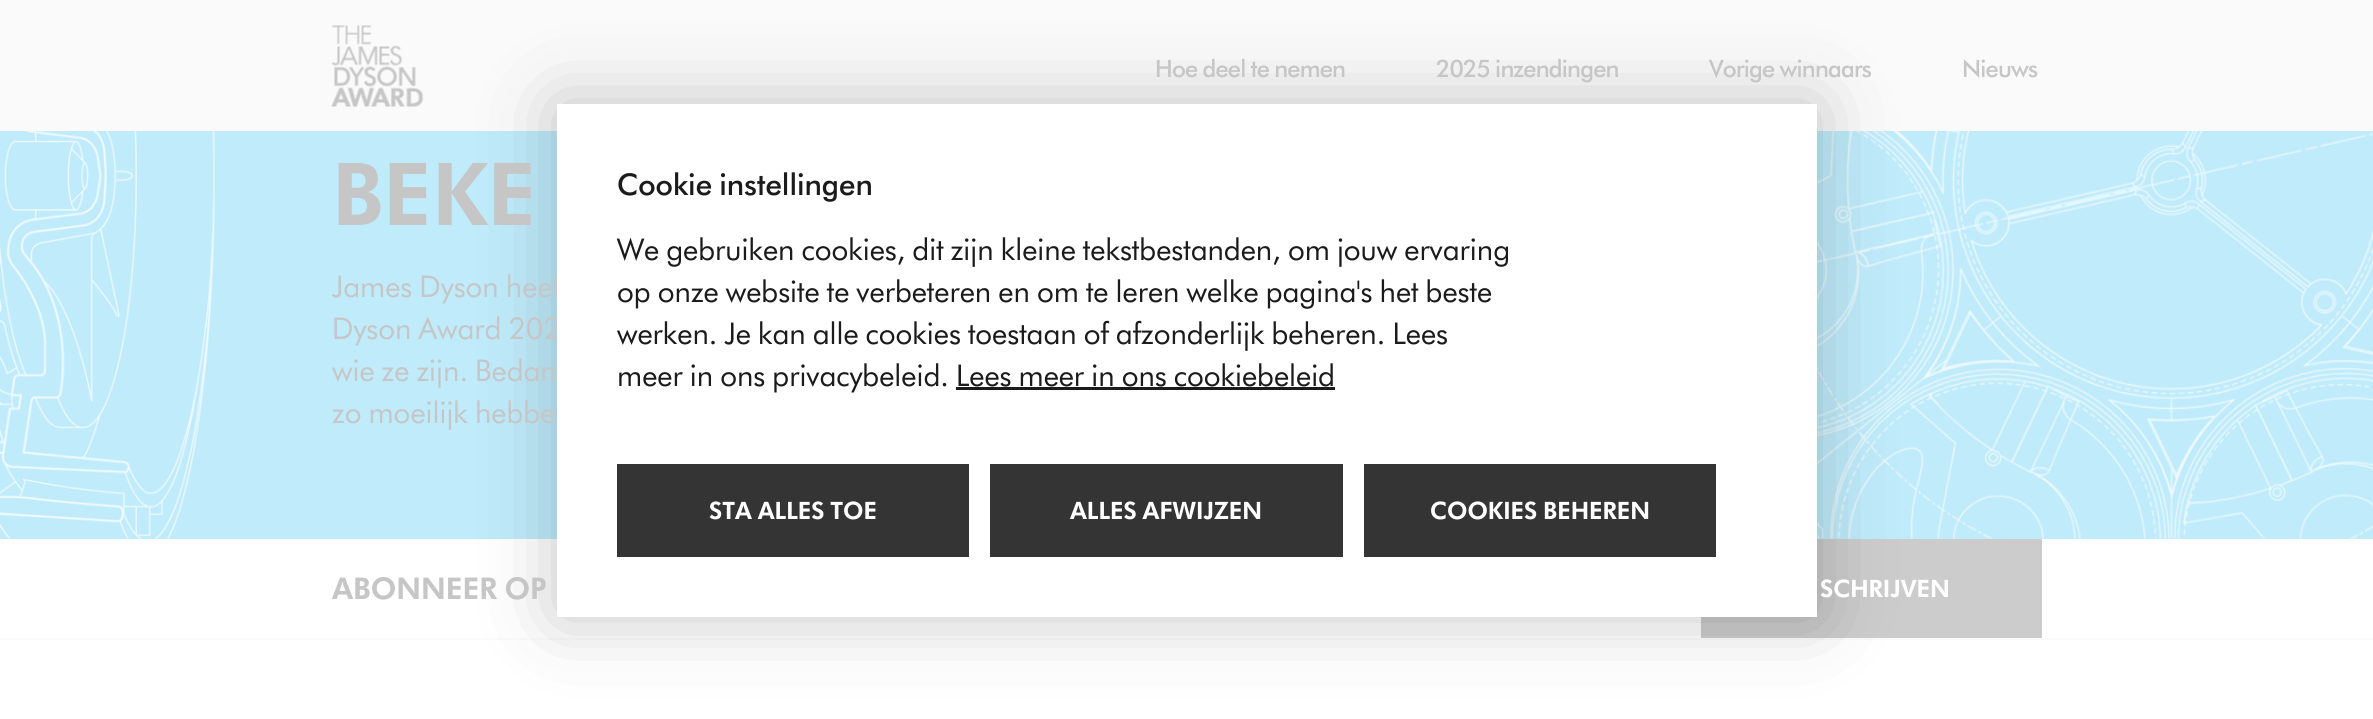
#include <cairo/cairo.h>
#include <math.h>
#include <stddef.h>

static cairo_t *cr;

static void use_color(int r, int g, int b) {
  cairo_set_source_rgb(cr, r / 255.0, g / 255.0, b / 255.0);
}

static void text(double x, double y, const char *s, const char *family, double size, int italic, int bold, int r, int g, int b) {
  cairo_select_font_face(cr, family, italic ? CAIRO_FONT_SLANT_ITALIC : CAIRO_FONT_SLANT_NORMAL,
    bold ? CAIRO_FONT_WEIGHT_BOLD : CAIRO_FONT_WEIGHT_NORMAL);
  cairo_set_font_size(cr, size);
  use_color(r, g, b);
  cairo_move_to(cr, x, y);
  cairo_show_text(cr, s);
}

static void spaced_text(double x, double y, const char *s, double letter, double word) {
  cairo_move_to(cr, x, y);
  while (*s) {
    char ch[5] = {0};
    int n = 0;
    do ch[n++] = *s++; while ((*s & 0xC0) == 0x80);
    cairo_show_text(cr, ch);
    cairo_rel_move_to(cr, letter + word * (*ch == ' '), 0);
  }
}

static void box(double x, double y, double w, double h, int r, int g, int b) {
  use_color(r, g, b);
  cairo_rectangle(cr, x, y, w, h);
  cairo_fill(cr);
}

static void round_rect(double x, double y, double w, double h, double r) {
  cairo_new_sub_path(cr);
  cairo_arc(cr, x + w - r, y + h - r, r, 0, M_PI / 2);
  cairo_arc(cr, x + r, y + h - r, r, M_PI / 2, M_PI);
  cairo_arc(cr, x + r, y + r, r, M_PI, 1.5 * M_PI);
  cairo_arc(cr, x + w - r, y + r, r, 1.5 * M_PI, 2 * M_PI);
  cairo_close_path(cr);
}

static void shadow(double x, double y, double w, double h, double r, double blur, double alpha) {
  cairo_push_group_with_content(cr, CAIRO_CONTENT_ALPHA);
  cairo_set_operator(cr, CAIRO_OPERATOR_SOURCE);
  for (int i = 15; i >= -15 && fmin(w, h) + blur * i / 3 > 0; i -= 2) {
    double e = blur * i / 6;
    cairo_set_source_rgba(cr, 0, 0, 0, alpha * erfc((i - 1) / 8.5) / 2);
    round_rect(x - e, y - e, w + 2 * e, h + 2 * e, fmax(0, fmin(r + e + blur * .6, fmin(w, h) / 2 + e)));
    cairo_fill(cr);
  }
  cairo_pattern_t *soft = cairo_pop_group(cr);
  cairo_mask(cr, soft);
  cairo_pattern_destroy(soft);
}

static void picture(const char *path, double x, double y, double w, double h) {
  cairo_surface_t *image = cairo_image_surface_create_from_png(path);
  cairo_save(cr);
  cairo_set_source_surface(cr, image, x, y);
  cairo_rectangle(cr, x, y, w, h);
  cairo_fill(cr);
  cairo_restore(cr);
  cairo_surface_destroy(image);
}

static void draw(void) {
  use_color(255, 255, 255);
  cairo_paint(cr);
  box(0, 0, 2373, 131, 250, 250, 250);
  picture("img_01.png", 331, 25, 93, 82);
  box(0, 131, 2373, 408, 191, 235, 251);
  picture("img_02.png", 0, 131, 2373, 408);
  box(0, 638, 2373, 2, 251, 251, 251);
  box(1701, 539, 341, 99, 204, 204, 204);
  use_color(27, 27, 27);
  shadow(557, 104, 1260, 513, 0, 37.5, 0.25);
  cairo_select_font_face(cr, "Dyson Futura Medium", CAIRO_FONT_SLANT_NORMAL, CAIRO_FONT_WEIGHT_NORMAL);
  cairo_set_font_size(cr, 24);
  use_color(198, 198, 198);
  spaced_text(1155, 77, "Hoe deel te nemen", -0.75, 0);
  spaced_text(1436, 77, "2025 inzendingen", -0.75, 0);
  spaced_text(1709, 77, "Vorige winnaars", -0.75, 0);
  spaced_text(1962, 77, "Nieuws", -0.75, 0);
  text(332, 225, "BEKE", "Dyson Futura Black", 87, 0, 0, 198, 198, 198);
  text(332, 297, "James Dyson heef", "Dyson Futura", 30, 0, 0, 198, 198, 198);
  text(332, 339, "Dyson Award 202", "Dyson Futura", 30, 0, 0, 198, 198, 198);
  text(332, 381, "wie ze zijn. Bedan", "Dyson Futura", 30, 0, 0, 198, 198, 198);
  text(332, 423, "zo moeilijk hebbe", "Dyson Futura", 30, 0, 0, 198, 198, 198);
  text(332, 599, "ABONNEER OP", "Dyson Futura Black", 30, 0, 0, 198, 198, 198);
  text(1820, 597, "SCHRIJVEN", "Dyson Futura Black", 24, 0, 0, 255, 255, 255);
  box(557, 104, 1260, 513, 255, 255, 255);
  text(617, 195, "Cookie instellingen", "Dyson Futura Medium", 30, 0, 0, 27, 27, 27);
  text(617, 260, "We gebruiken cookies, dit zijn kleine tekstbestanden, om jouw ervaring", "Dyson Futura", 30, 0, 0, 27, 27, 27);
  text(617, 302, "op onze website te verbeteren en om te leren welke pagina's het beste", "Dyson Futura", 30, 0, 0, 27, 27, 27);
  text(617, 344, "werken. Je kan alle cookies toestaan of afzonderlijk beheren. Lees", "Dyson Futura", 30, 0, 0, 27, 27, 27);
  text(617, 386, "meer in ons privacybeleid. Lees meer in ons cookiebeleid", "Dyson Futura", 30, 0, 0, 27, 27, 27);
  box(956, 387, 379, 3, 27, 27, 27);
  box(617, 464, 352, 93, 52, 52, 52);
  text(709, 519, "STA ALLES TOE", "Dyson Futura Black", 24, 0, 0, 255, 255, 255);
  box(990, 464, 353, 93, 52, 52, 52);
  text(1070, 519, "ALLES AFWIJZEN", "Dyson Futura Black", 24, 0, 0, 255, 255, 255);
  box(1364, 464, 352, 93, 52, 52, 52);
  text(1430, 519, "COOKIES BEHEREN", "Dyson Futura Black", 24, 0, 0, 255, 255, 255);
}

int main(void) {
  cairo_surface_t *surface = cairo_image_surface_create(CAIRO_FORMAT_RGB24, 2373, 719);
  cr = cairo_create(surface);
  cairo_font_options_t *options = cairo_font_options_create();
  cairo_font_options_set_hint_metrics(options, CAIRO_HINT_METRICS_OFF);
  cairo_font_options_set_hint_style(options, CAIRO_HINT_STYLE_NONE);
  cairo_set_font_options(cr, options);
  cairo_set_miter_limit(cr, 4);
  draw();
  cairo_surface_write_to_png(surface, "out.png");
  cairo_font_options_destroy(options);
  cairo_destroy(cr);
  cairo_surface_destroy(surface);
  return 0;
}
